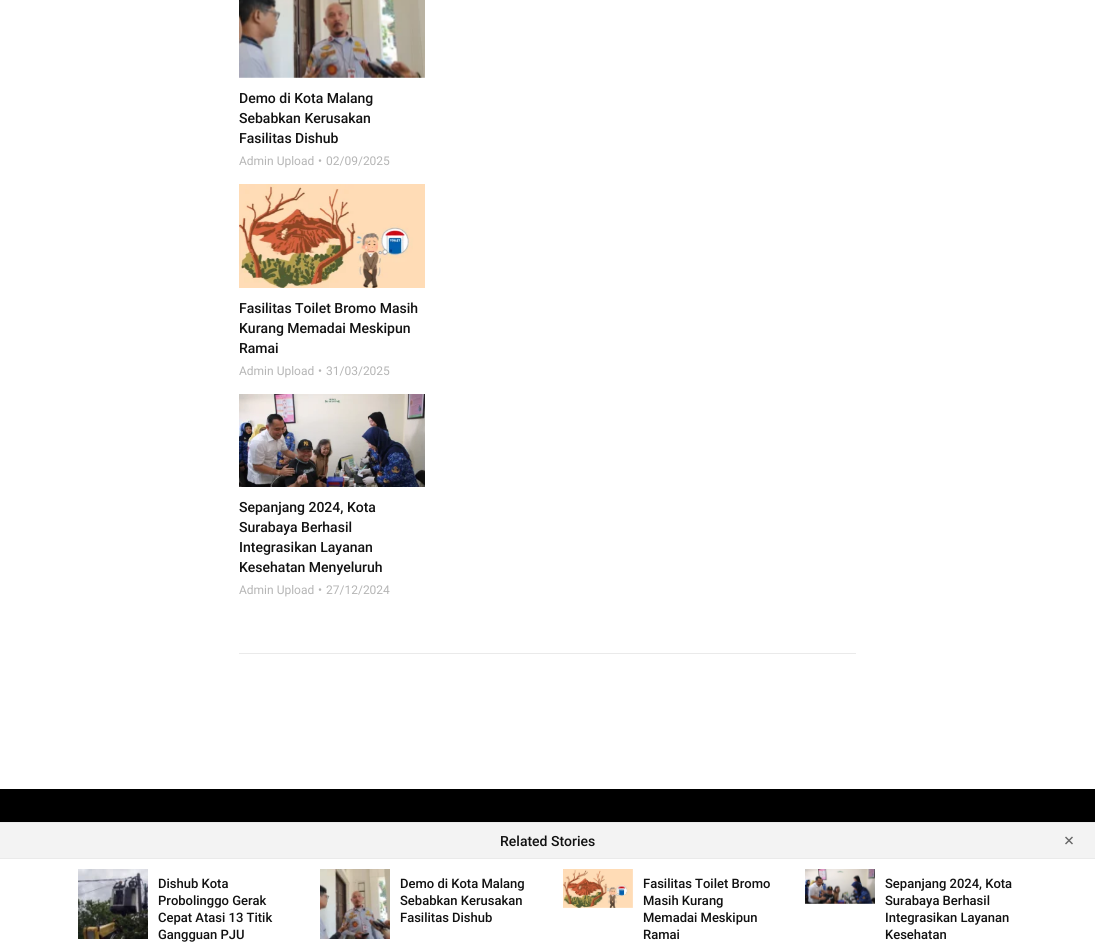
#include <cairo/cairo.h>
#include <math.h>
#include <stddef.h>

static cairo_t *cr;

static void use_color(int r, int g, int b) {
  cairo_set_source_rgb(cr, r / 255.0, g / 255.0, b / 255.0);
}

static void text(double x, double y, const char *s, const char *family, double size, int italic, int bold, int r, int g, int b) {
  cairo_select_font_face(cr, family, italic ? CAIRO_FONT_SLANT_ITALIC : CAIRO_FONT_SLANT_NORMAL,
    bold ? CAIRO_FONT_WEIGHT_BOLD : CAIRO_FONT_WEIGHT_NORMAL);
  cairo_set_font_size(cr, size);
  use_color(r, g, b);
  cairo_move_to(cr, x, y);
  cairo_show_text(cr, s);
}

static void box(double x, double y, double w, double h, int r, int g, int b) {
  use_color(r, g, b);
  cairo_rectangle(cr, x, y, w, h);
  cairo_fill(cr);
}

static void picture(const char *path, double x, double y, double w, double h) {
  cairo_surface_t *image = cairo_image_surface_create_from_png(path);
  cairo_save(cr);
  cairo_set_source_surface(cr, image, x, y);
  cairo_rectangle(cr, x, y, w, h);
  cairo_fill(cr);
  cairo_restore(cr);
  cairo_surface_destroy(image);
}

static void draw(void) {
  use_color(255, 255, 255);
  cairo_paint(cr);
  picture("img_01.png", 239, 0, 186, 78);
  picture("img_02.png", 239, 184, 186, 104);
  picture("img_03.png", 239, 394, 186, 93);
  box(239, 653, 617, 1, 234, 234, 234);
  box(0, 789, 1095, 33, 0, 0, 0);
  box(0, 823, 1095, 35, 243, 243, 243);
  box(0, 822, 1095, 1, 234, 234, 234);
  box(0, 858, 1095, 1, 234, 234, 234);
  use_color(102, 102, 102);
  cairo_new_path(cr);
  cairo_move_to(cr, 1065, 843.5);
  cairo_line_to(cr, 1072, 836.5);
  cairo_line_to(cr, 1073, 837.5);
  cairo_line_to(cr, 1066, 844.5);
  cairo_close_path(cr);
  cairo_fill(cr);
  cairo_new_path(cr);
  cairo_move_to(cr, 1066, 836.5);
  cairo_line_to(cr, 1073, 843.5);
  cairo_line_to(cr, 1072, 844.5);
  cairo_line_to(cr, 1065, 837.5);
  cairo_close_path(cr);
  cairo_fill(cr);
  picture("img_04.png", 78, 869, 70, 70);
  picture("img_05.png", 320, 869, 70, 70);
  picture("img_06.png", 563, 869, 70, 39);
  picture("img_07.png", 805, 869, 70, 35);
  text(239, 103, "Demo di Kota Malang", "Roboto Medium", 14, 0, 0, 17, 17, 17);
  text(239, 123, "Sebabkan Kerusakan", "Roboto Medium", 14, 0, 0, 17, 17, 17);
  text(239, 143, "Fasilitas Dishub", "Roboto Medium", 14, 0, 0, 17, 17, 17);
  text(239, 165, "Admin Upload", "Roboto", 12, 0, 0, 181, 181, 181);
  text(318, 165, "•", "Roboto", 12, 0, 0, 181, 181, 181);
  text(326, 165, "02/09/2025", "Roboto", 12, 0, 0, 181, 181, 181);
  text(239, 313, "Fasilitas Toilet Bromo Masih", "Roboto Medium", 14, 0, 0, 17, 17, 17);
  text(239, 333, "Kurang Memadai Meskipun", "Roboto Medium", 14, 0, 0, 17, 17, 17);
  text(239, 353, "Ramai", "Roboto Medium", 14, 0, 0, 17, 17, 17);
  text(239, 375, "Admin Upload", "Roboto", 12, 0, 0, 181, 181, 181);
  text(318, 375, "•", "Roboto", 12, 0, 0, 181, 181, 181);
  text(326, 375, "31/03/2025", "Roboto", 12, 0, 0, 181, 181, 181);
  text(239, 512, "Sepanjang 2024, Kota", "Roboto Medium", 14, 0, 0, 17, 17, 17);
  text(239, 532, "Surabaya Berhasil", "Roboto Medium", 14, 0, 0, 17, 17, 17);
  text(239, 552, "Integrasikan Layanan", "Roboto Medium", 14, 0, 0, 17, 17, 17);
  text(239, 572, "Kesehatan Menyeluruh", "Roboto Medium", 14, 0, 0, 17, 17, 17);
  text(239, 594, "Admin Upload", "Roboto", 12, 0, 0, 181, 181, 181);
  text(318, 594, "•", "Roboto", 12, 0, 0, 181, 181, 181);
  text(326, 594, "27/12/2024", "Roboto", 12, 0, 0, 181, 181, 181);
  text(500, 846, "Related Stories", "Roboto Medium", 14, 0, 0, 17, 17, 17);
  text(158, 888, "Dishub Kota", "Roboto Medium", 13, 0, 0, 17, 17, 17);
  text(158, 905, "Probolinggo Gerak", "Roboto Medium", 13, 0, 0, 17, 17, 17);
  text(158, 922, "Cepat Atasi 13 Titik", "Roboto Medium", 13, 0, 0, 17, 17, 17);
  text(158, 939, "Gangguan PJU", "Roboto Medium", 13, 0, 0, 17, 17, 17);
  text(400, 888, "Demo di Kota Malang", "Roboto Medium", 13, 0, 0, 17, 17, 17);
  text(400, 905, "Sebabkan Kerusakan", "Roboto Medium", 13, 0, 0, 17, 17, 17);
  text(400, 922, "Fasilitas Dishub", "Roboto Medium", 13, 0, 0, 17, 17, 17);
  text(643, 888, "Fasilitas Toilet Bromo", "Roboto Medium", 13, 0, 0, 17, 17, 17);
  text(643, 905, "Masih Kurang", "Roboto Medium", 13, 0, 0, 17, 17, 17);
  text(643, 922, "Memadai Meskipun", "Roboto Medium", 13, 0, 0, 17, 17, 17);
  text(643, 939, "Ramai", "Roboto Medium", 13, 0, 0, 17, 17, 17);
  text(885, 888, "Sepanjang 2024, Kota", "Roboto Medium", 13, 0, 0, 17, 17, 17);
  text(885, 905, "Surabaya Berhasil", "Roboto Medium", 13, 0, 0, 17, 17, 17);
  text(885, 922, "Integrasikan Layanan", "Roboto Medium", 13, 0, 0, 17, 17, 17);
  text(885, 939, "Kesehatan", "Roboto Medium", 13, 0, 0, 17, 17, 17);
}

int main(void) {
  cairo_surface_t *surface = cairo_image_surface_create(CAIRO_FORMAT_RGB24, 1095, 946);
  cr = cairo_create(surface);
  cairo_font_options_t *options = cairo_font_options_create();
  cairo_font_options_set_hint_metrics(options, CAIRO_HINT_METRICS_OFF);
  cairo_font_options_set_hint_style(options, CAIRO_HINT_STYLE_NONE);
  cairo_set_font_options(cr, options);
  cairo_set_miter_limit(cr, 4);
  draw();
  cairo_surface_write_to_png(surface, "out.png");
  cairo_font_options_destroy(options);
  cairo_destroy(cr);
  cairo_surface_destroy(surface);
  return 0;
}
